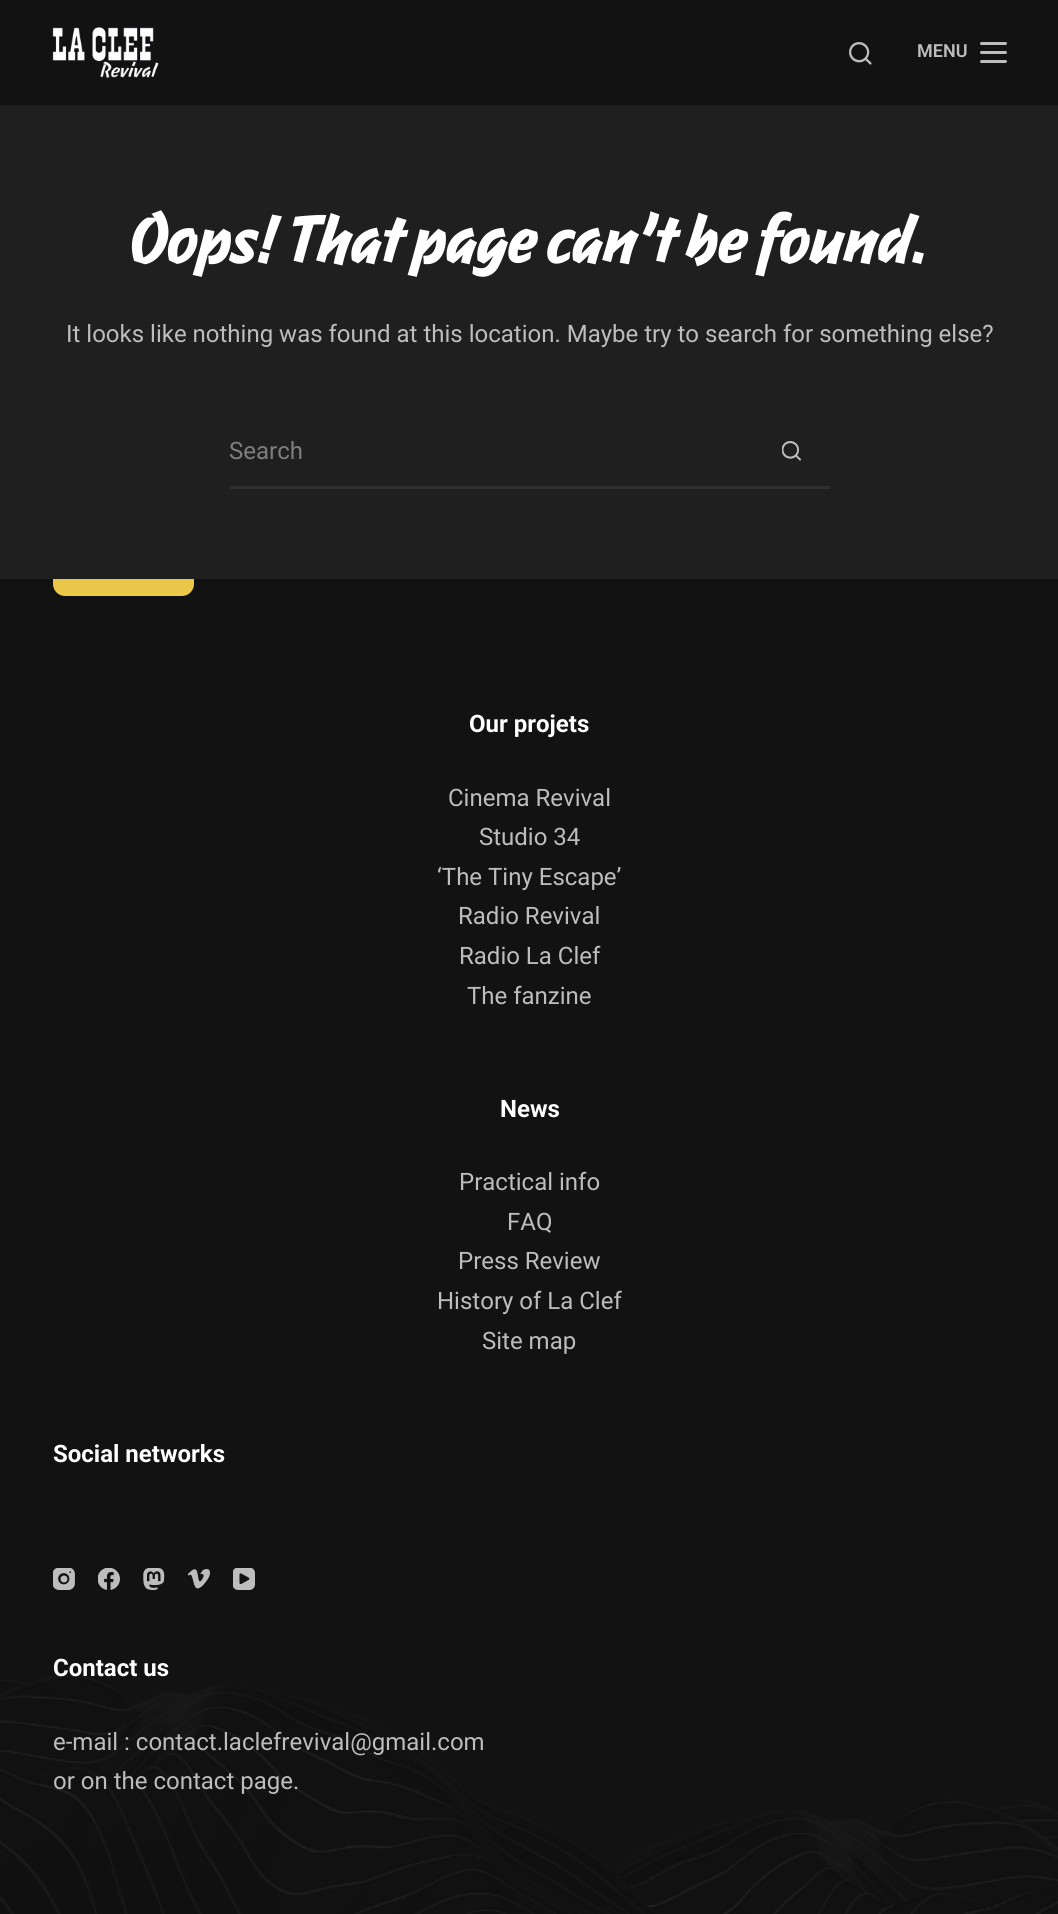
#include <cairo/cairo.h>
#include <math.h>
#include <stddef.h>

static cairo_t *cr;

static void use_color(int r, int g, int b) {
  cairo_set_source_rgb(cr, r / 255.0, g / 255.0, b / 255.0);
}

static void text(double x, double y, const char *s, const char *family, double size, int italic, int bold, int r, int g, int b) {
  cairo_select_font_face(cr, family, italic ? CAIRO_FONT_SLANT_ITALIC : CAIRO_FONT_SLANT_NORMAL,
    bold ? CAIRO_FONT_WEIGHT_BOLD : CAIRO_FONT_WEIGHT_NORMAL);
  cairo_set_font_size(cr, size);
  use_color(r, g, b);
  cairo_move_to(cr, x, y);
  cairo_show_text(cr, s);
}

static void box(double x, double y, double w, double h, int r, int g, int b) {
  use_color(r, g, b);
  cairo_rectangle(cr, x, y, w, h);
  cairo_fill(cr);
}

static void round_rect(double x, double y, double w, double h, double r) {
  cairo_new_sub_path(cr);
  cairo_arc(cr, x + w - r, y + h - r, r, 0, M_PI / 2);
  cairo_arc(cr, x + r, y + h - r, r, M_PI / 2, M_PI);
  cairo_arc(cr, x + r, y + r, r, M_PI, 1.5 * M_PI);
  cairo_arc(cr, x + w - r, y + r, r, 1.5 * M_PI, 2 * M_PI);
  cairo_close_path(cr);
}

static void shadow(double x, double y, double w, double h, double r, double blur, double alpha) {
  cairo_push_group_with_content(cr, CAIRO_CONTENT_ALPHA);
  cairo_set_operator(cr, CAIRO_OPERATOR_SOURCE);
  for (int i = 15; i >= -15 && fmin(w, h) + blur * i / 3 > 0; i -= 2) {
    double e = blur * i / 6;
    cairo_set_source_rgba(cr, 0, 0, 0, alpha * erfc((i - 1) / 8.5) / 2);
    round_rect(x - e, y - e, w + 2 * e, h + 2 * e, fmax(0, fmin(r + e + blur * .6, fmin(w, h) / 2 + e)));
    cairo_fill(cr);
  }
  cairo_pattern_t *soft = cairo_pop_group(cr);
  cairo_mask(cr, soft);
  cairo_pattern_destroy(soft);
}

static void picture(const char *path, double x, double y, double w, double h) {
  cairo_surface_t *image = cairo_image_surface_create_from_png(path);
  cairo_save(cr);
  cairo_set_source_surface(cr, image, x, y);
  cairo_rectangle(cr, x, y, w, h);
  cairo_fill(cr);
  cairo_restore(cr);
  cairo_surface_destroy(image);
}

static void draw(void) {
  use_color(18, 18, 18);
  cairo_paint(cr);
  use_color(255, 217, 79);
  round_rect(53, 521, 141, 75, 12);
  cairo_fill(cr);
  use_color(0, 0, 0);
  shadow(0, 150, 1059, 474, 0, 37.5, 0.1);
  picture("img_01.png", 52, 27, 107, 51);
  picture("img_02.png", 849, 42, 23, 23);
  use_color(189, 189, 189);
  round_rect(980, 42, 27, 3, 1.5);
  cairo_fill(cr);
  round_rect(980, 51, 27, 3, 1.5);
  cairo_fill(cr);
  round_rect(980, 60, 27, 3, 1.5);
  cairo_fill(cr);
  box(0, 105, 1058, 474, 31, 31, 31);
  box(230, 486, 600, 3, 48, 48, 48);
  picture("img_03.png", 782, 441, 19, 20);
  picture("img_04.png", 0, 1675, 1058, 239);
  picture("img_05.png", 53, 1568, 22, 22);
  picture("img_06.png", 98, 1568, 22, 22);
  picture("img_07.png", 143, 1568, 22, 22);
  picture("img_08.png", 188, 1569, 22, 20);
  picture("img_09.png", 233, 1568, 22, 22);
  text(917, 57, "MENU", "Roboto SemiBold", 18, 0, 0, 189, 189, 189);
  text(129, 261, "Oops! That page can’t be found.", "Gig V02", 60, 0, 1, 255, 255, 255);
  text(66, 342, "It looks like nothing was found at this location. Maybe try to search for something else?", "Roboto", 24, 0, 0, 189, 189, 189);
  text(229, 459, "Search", "Roboto", 24, 0, 0, 126, 126, 126);
  text(469, 732, "Our projets", "Roboto", 24, 0, 1, 255, 255, 255);
  text(448, 806, "Cinema Revival", "Roboto", 24, 0, 0, 189, 189, 189);
  text(479, 845, "Studio 34", "Roboto", 24, 0, 0, 189, 189, 189);
  text(437, 885, "‘The Tiny Escape’", "Roboto", 24, 0, 0, 189, 189, 189);
  text(458, 924, "Radio Revival", "Roboto", 24, 0, 0, 189, 189, 189);
  text(459, 964, "Radio La Clef", "Roboto", 24, 0, 0, 189, 189, 189);
  text(467, 1004, "The fanzine", "Roboto", 24, 0, 0, 189, 189, 189);
  text(500, 1117, "News", "Roboto", 24, 0, 1, 255, 255, 255);
  text(459, 1190, "Practical info", "Roboto", 24, 0, 0, 189, 189, 189);
  text(507, 1230, "FAQ", "Roboto", 24, 0, 0, 189, 189, 189);
  text(458, 1269, "Press Review", "Roboto", 24, 0, 0, 189, 189, 189);
  text(437, 1309, "History of La Clef", "Roboto", 24, 0, 0, 189, 189, 189);
  text(482, 1349, "Site map", "Roboto", 24, 0, 0, 189, 189, 189);
  text(53, 1462, "Social networks", "Roboto", 24, 0, 1, 255, 255, 255);
  text(53, 1676, "Contact us", "Roboto", 24, 0, 1, 255, 255, 255);
  text(53, 1750, "e-mail : contact.laclefrevival@gmail.com", "Roboto", 24, 0, 0, 189, 189, 189);
  text(53, 1789, "or on the contact page.", "Roboto", 24, 0, 0, 189, 189, 189);
}

int main(void) {
  cairo_surface_t *surface = cairo_image_surface_create(CAIRO_FORMAT_RGB24, 1058, 1914);
  cr = cairo_create(surface);
  cairo_font_options_t *options = cairo_font_options_create();
  cairo_font_options_set_hint_metrics(options, CAIRO_HINT_METRICS_OFF);
  cairo_font_options_set_hint_style(options, CAIRO_HINT_STYLE_NONE);
  cairo_set_font_options(cr, options);
  cairo_set_miter_limit(cr, 4);
  draw();
  cairo_surface_write_to_png(surface, "out.png");
  cairo_font_options_destroy(options);
  cairo_destroy(cr);
  cairo_surface_destroy(surface);
  return 0;
}
